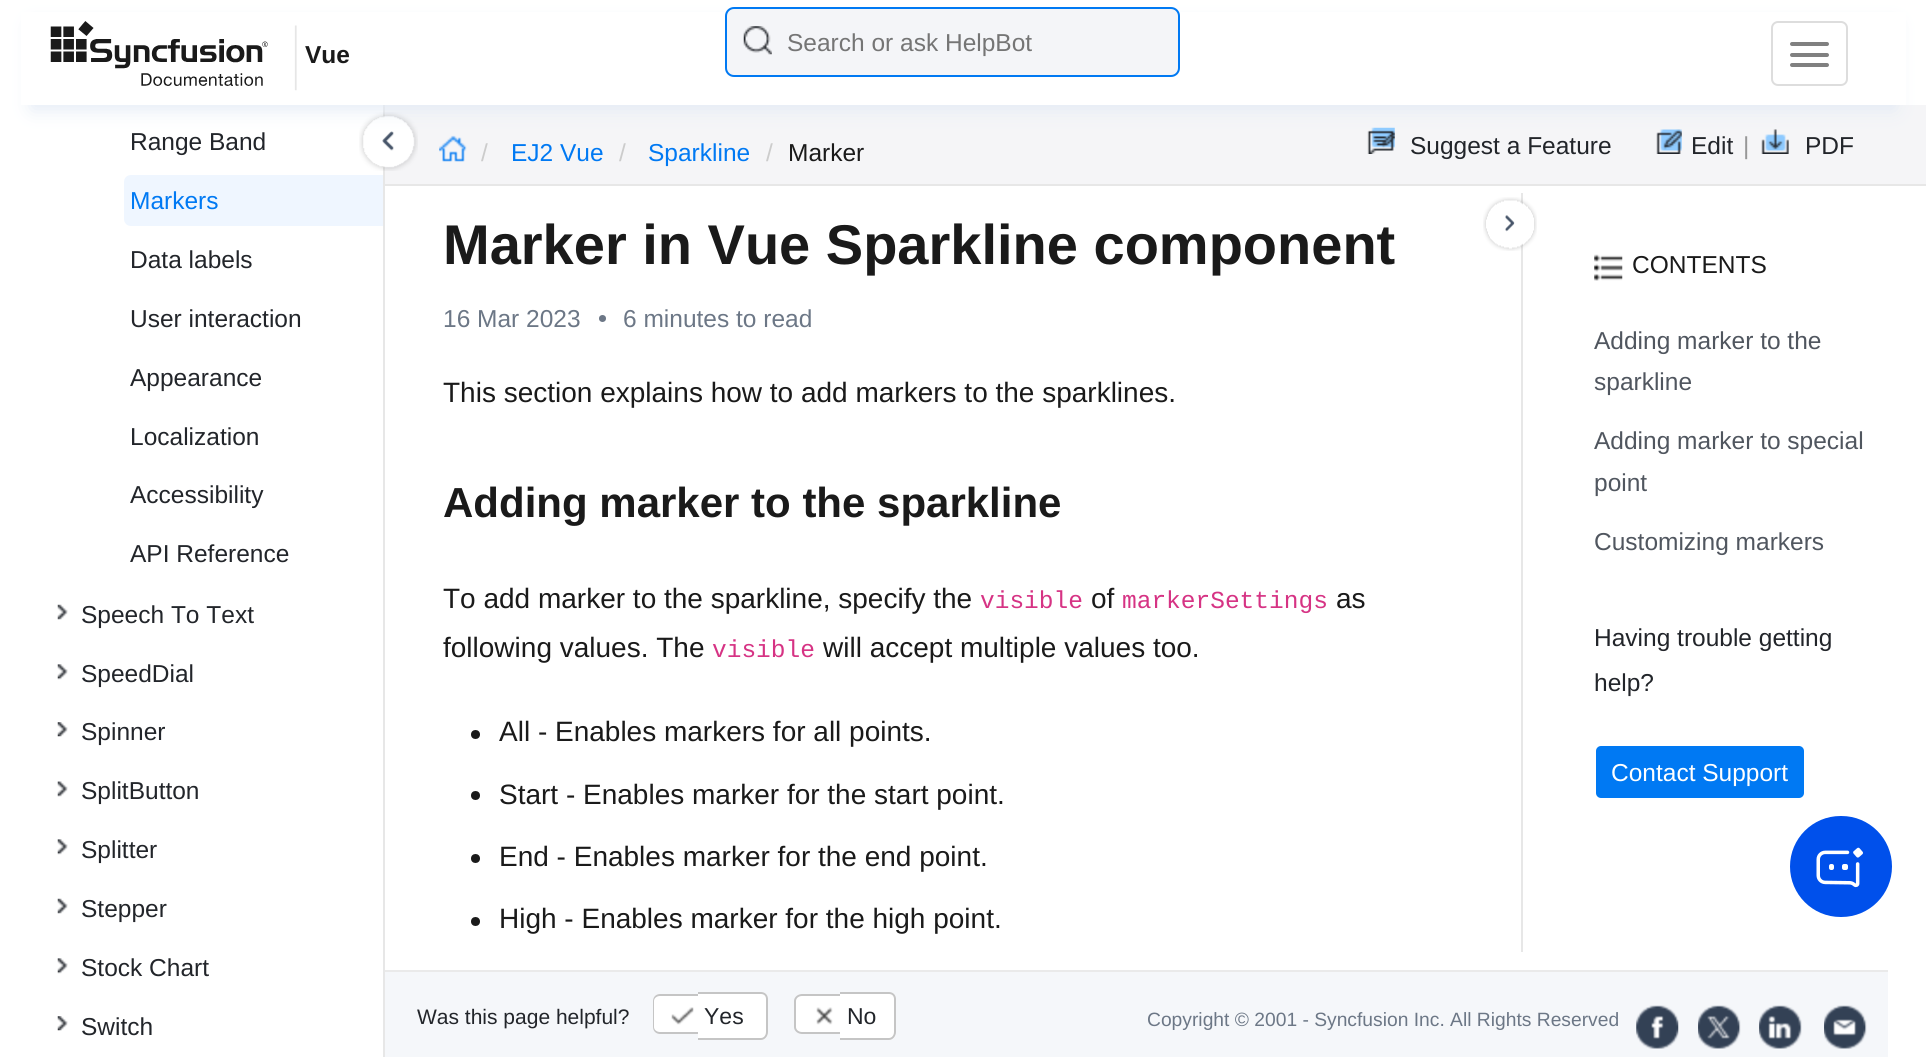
#include <cairo/cairo.h>
#include <math.h>
#include <stddef.h>

static cairo_t *cr;

static void use_color(int r, int g, int b) {
  cairo_set_source_rgb(cr, r / 255.0, g / 255.0, b / 255.0);
}

static void text(double x, double y, const char *s, const char *family, double size, int italic, int bold, int r, int g, int b) {
  cairo_select_font_face(cr, family, italic ? CAIRO_FONT_SLANT_ITALIC : CAIRO_FONT_SLANT_NORMAL,
    bold ? CAIRO_FONT_WEIGHT_BOLD : CAIRO_FONT_WEIGHT_NORMAL);
  cairo_set_font_size(cr, size);
  use_color(r, g, b);
  cairo_move_to(cr, x, y);
  cairo_show_text(cr, s);
}

static void box(double x, double y, double w, double h, int r, int g, int b) {
  use_color(r, g, b);
  cairo_rectangle(cr, x, y, w, h);
  cairo_fill(cr);
}

static void round_rect(double x, double y, double w, double h, double r) {
  cairo_new_sub_path(cr);
  cairo_arc(cr, x + w - r, y + h - r, r, 0, M_PI / 2);
  cairo_arc(cr, x + r, y + h - r, r, M_PI / 2, M_PI);
  cairo_arc(cr, x + r, y + r, r, M_PI, 1.5 * M_PI);
  cairo_arc(cr, x + w - r, y + r, r, 1.5 * M_PI, 2 * M_PI);
  cairo_close_path(cr);
}

static void shadow(double x, double y, double w, double h, double r, double blur, double alpha) {
  cairo_push_group_with_content(cr, CAIRO_CONTENT_ALPHA);
  cairo_set_operator(cr, CAIRO_OPERATOR_SOURCE);
  for (int i = 15; i >= -15 && fmin(w, h) + blur * i / 3 > 0; i -= 2) {
    double e = blur * i / 6;
    cairo_set_source_rgba(cr, 0, 0, 0, alpha * erfc((i - 1) / 8.5) / 2);
    round_rect(x - e, y - e, w + 2 * e, h + 2 * e, fmax(0, fmin(r + e + blur * .6, fmin(w, h) / 2 + e)));
    cairo_fill(cr);
  }
  cairo_pattern_t *soft = cairo_pop_group(cr);
  cairo_mask(cr, soft);
  cairo_pattern_destroy(soft);
}

static void picture(const char *path, double x, double y, double w, double h) {
  cairo_surface_t *image = cairo_image_surface_create_from_png(path);
  cairo_save(cr);
  cairo_set_source_surface(cr, image, x, y);
  cairo_rectangle(cr, x, y, w, h);
  cairo_fill(cr);
  cairo_restore(cr);
  cairo_surface_destroy(image);
}

static void draw(void) {
  use_color(255, 255, 255);
  cairo_paint(cr);
  box(385, 105, 1541, 79, 245, 245, 247);
  picture("img_03.png", 439, 135, 28, 27);
  picture("img_04.png", 1367, 127, 28, 27);
  picture("img_05.png", 1656, 129, 26, 25);
  picture("img_06.png", 1761, 129, 28, 25);
  box(383, 105, 2, 952, 231, 231, 231);
  picture("img_11.png", 359, 112, 59, 59);
  use_color(226, 234, 245);
  shadow(32, 25, 1863, 84, 0, 9.5, 1);
  box(21, 12, 1885, 93, 255, 255, 255);
  picture("img_01.png", 50, 21, 247, 70);
  use_color(244, 245, 248);
  round_rect(725, 7, 455, 70, 9);
  cairo_fill(cr);
  picture("img_02.png", 743, 26, 29, 29);
  round_rect(726, 8, 453, 68, 8);
  use_color(0, 121, 243);
  cairo_stroke(cr);
  round_rect(1772, 22, 75, 63, 6);
  use_color(221, 221, 221);
  cairo_stroke(cr);
  use_color(128, 128, 128);
  round_rect(1790, 42, 39, 4, 2);
  cairo_fill(cr);
  round_rect(1790, 53, 39, 4, 2);
  cairo_fill(cr);
  round_rect(1790, 63, 39, 4, 2);
  cairo_fill(cr);
  box(385, 184, 1541, 2, 231, 231, 231);
  use_color(239, 246, 255);
  cairo_new_path(cr);
  cairo_move_to(cr, 131, 175);
  cairo_line_to(cr, 383, 175);
  cairo_line_to(cr, 383, 226);
  cairo_line_to(cr, 131, 226);
  cairo_curve_to(cr, 127, 226, 124, 223, 124, 219);
  cairo_line_to(cr, 124, 182);
  cairo_curve_to(cr, 124, 178, 127, 175, 131, 175);
  cairo_close_path(cr);
  cairo_fill(cr);
  picture("img_07.png", 57, 604, 11, 16);
  picture("img_08.png", 57, 664, 11, 16);
  picture("img_09.png", 57, 722, 11, 15);
  picture("img_10.png", 57, 781, 11, 16);
  picture("img_08.png", 57, 839, 11, 16);
  picture("img_07.png", 57, 898, 11, 16);
  picture("img_08.png", 57, 958, 11, 16);
  picture("img_09.png", 57, 1016, 11, 15);
  box(1521, 193, 2, 759, 231, 231, 231);
  use_color(108, 119, 134);
  cairo_arc(cr, 602.5, 318.5, 3.5, 0, 2 * M_PI);
  cairo_fill(cr);
  use_color(26, 26, 26);
  cairo_arc(cr, 475.5, 734.5, 4.5, 0, 2 * M_PI);
  cairo_fill(cr);
  cairo_arc(cr, 475.5, 795.5, 4.5, 0, 2 * M_PI);
  cairo_fill(cr);
  cairo_arc(cr, 475.5, 858.5, 4.5, 0, 2 * M_PI);
  cairo_fill(cr);
  cairo_arc(cr, 475.5, 921.5, 4.5, 0, 2 * M_PI);
  cairo_fill(cr);
  picture("img_12.png", 1483, 197, 54, 54);
  picture("img_13.png", 1594, 254, 29, 27);
  use_color(0, 121, 243);
  round_rect(1595, 745, 210, 54, 6);
  cairo_fill_preserve(cr);
  use_color(255, 255, 255);
  cairo_stroke(cr);
  use_color(0, 80, 235);
  round_rect(1790, 816, 102, 101, 50.5);
  cairo_fill(cr);
  picture("img_14.png", 1816, 847, 47, 41);
  box(385, 972, 1503, 85, 245, 247, 250);
  box(385, 970, 1503, 2, 234, 234, 234);
  use_color(255, 255, 255);
  cairo_new_path(cr);
  cairo_move_to(cr, 660, 994);
  cairo_line_to(cr, 698, 994);
  cairo_line_to(cr, 698, 1034);
  cairo_line_to(cr, 660, 1034);
  cairo_curve_to(cr, 656, 1034, 653, 1031, 653, 1027);
  cairo_line_to(cr, 653, 1001);
  cairo_curve_to(cr, 653, 997, 656, 994, 660, 994);
  cairo_close_path(cr);
  cairo_fill(cr);
  use_color(197, 197, 197);
  cairo_set_fill_rule(cr, CAIRO_FILL_RULE_EVEN_ODD);
  cairo_new_path(cr);
  cairo_move_to(cr, 660, 994);
  cairo_line_to(cr, 698, 994);
  cairo_line_to(cr, 698, 1034);
  cairo_line_to(cr, 660, 1034);
  cairo_curve_to(cr, 656, 1034, 653, 1031, 653, 1027);
  cairo_line_to(cr, 653, 1001);
  cairo_curve_to(cr, 653, 997, 656, 994, 660, 994);
  cairo_close_path(cr);
  cairo_move_to(cr, 660, 996);
  cairo_line_to(cr, 698, 996);
  cairo_line_to(cr, 698, 1032);
  cairo_line_to(cr, 660, 1032);
  cairo_curve_to(cr, 657, 1032, 654, 1030, 654, 1027);
  cairo_line_to(cr, 654, 1001);
  cairo_curve_to(cr, 654, 998, 657, 996, 660, 996);
  cairo_close_path(cr);
  cairo_fill(cr);
  use_color(255, 255, 255);
  cairo_new_path(cr);
  cairo_move_to(cr, 698, 992);
  cairo_line_to(cr, 761, 992);
  cairo_curve_to(cr, 765, 992, 768, 995, 768, 999);
  cairo_line_to(cr, 768, 1033);
  cairo_curve_to(cr, 768, 1037, 765, 1040, 761, 1040);
  cairo_line_to(cr, 698, 1040);
  cairo_close_path(cr);
  cairo_fill(cr);
  use_color(197, 197, 197);
  cairo_new_path(cr);
  cairo_move_to(cr, 698, 992);
  cairo_line_to(cr, 761, 992);
  cairo_curve_to(cr, 765, 992, 768, 995, 768, 999);
  cairo_line_to(cr, 768, 1032);
  cairo_curve_to(cr, 768, 1036, 765, 1040, 761, 1040);
  cairo_line_to(cr, 698, 1040);
  cairo_close_path(cr);
  cairo_move_to(cr, 698, 994);
  cairo_line_to(cr, 761, 994);
  cairo_curve_to(cr, 764, 994, 766, 996, 766, 999);
  cairo_line_to(cr, 766, 1032);
  cairo_curve_to(cr, 766, 1035, 764, 1038, 761, 1038);
  cairo_line_to(cr, 698, 1038);
  cairo_close_path(cr);
  cairo_fill(cr);
  picture("img_15.png", 671, 1007, 23, 18);
  use_color(255, 255, 255);
  cairo_new_path(cr);
  cairo_move_to(cr, 802, 994);
  cairo_line_to(cr, 840, 994);
  cairo_line_to(cr, 840, 1034);
  cairo_line_to(cr, 802, 1034);
  cairo_curve_to(cr, 798, 1034, 795, 1031, 795, 1027);
  cairo_line_to(cr, 795, 1001);
  cairo_curve_to(cr, 795, 997, 798, 994, 802, 994);
  cairo_close_path(cr);
  cairo_fill(cr);
  use_color(197, 197, 197);
  cairo_new_path(cr);
  cairo_move_to(cr, 802, 994);
  cairo_line_to(cr, 840, 994);
  cairo_line_to(cr, 840, 1034);
  cairo_line_to(cr, 802, 1034);
  cairo_curve_to(cr, 798, 1034, 794, 1031, 794, 1027);
  cairo_line_to(cr, 794, 1001);
  cairo_curve_to(cr, 794, 997, 798, 994, 802, 994);
  cairo_close_path(cr);
  cairo_move_to(cr, 802, 996);
  cairo_line_to(cr, 840, 996);
  cairo_line_to(cr, 840, 1032);
  cairo_line_to(cr, 802, 1032);
  cairo_curve_to(cr, 799, 1032, 796, 1030, 796, 1027);
  cairo_line_to(cr, 796, 1001);
  cairo_curve_to(cr, 796, 998, 799, 996, 802, 996);
  cairo_close_path(cr);
  cairo_fill(cr);
  use_color(255, 255, 255);
  cairo_new_path(cr);
  cairo_move_to(cr, 840, 992);
  cairo_line_to(cr, 889, 992);
  cairo_curve_to(cr, 893, 992, 896, 995, 896, 999);
  cairo_line_to(cr, 896, 1033);
  cairo_curve_to(cr, 896, 1037, 893, 1040, 889, 1040);
  cairo_line_to(cr, 840, 1040);
  cairo_close_path(cr);
  cairo_fill(cr);
  use_color(197, 197, 197);
  cairo_new_path(cr);
  cairo_move_to(cr, 840, 992);
  cairo_line_to(cr, 889, 992);
  cairo_curve_to(cr, 893, 992, 896, 995, 896, 999);
  cairo_line_to(cr, 896, 1032);
  cairo_curve_to(cr, 896, 1036, 893, 1040, 889, 1040);
  cairo_line_to(cr, 840, 1040);
  cairo_close_path(cr);
  cairo_move_to(cr, 840, 994);
  cairo_line_to(cr, 889, 994);
  cairo_curve_to(cr, 892, 994, 894, 996, 894, 999);
  cairo_line_to(cr, 894, 1032);
  cairo_curve_to(cr, 894, 1035, 892, 1038, 889, 1038);
  cairo_line_to(cr, 840, 1038);
  cairo_close_path(cr);
  cairo_fill(cr);
  picture("img_16.png", 816, 1007, 17, 18);
  picture("img_17.png", 1636, 1005, 43, 44);
  picture("img_18.png", 1698, 1005, 43, 44);
  picture("img_19.png", 1759, 1005, 43, 44);
  picture("img_20.png", 1824, 1005, 43, 44);
  text(305, 63, "Vue", "Liberation Sans", 24.5, 0, 1, 26, 26, 26);
  text(787, 51, "Search or ask HelpBot", "Liberation Sans", 24.5, 0, 0, 117, 117, 117);
  text(481, 161, "/", "Liberation Sans", 24.5, 0, 0, 204, 204, 204);
  text(511, 161, "EJ2 Vue", "Liberation Sans", 24.5, 0, 0, 0, 121, 243);
  text(619, 161, "/", "Liberation Sans", 24.5, 0, 0, 204, 204, 204);
  text(648, 161, "Sparkline", "Liberation Sans", 24.5, 0, 0, 0, 121, 243);
  text(766, 161, "/", "Liberation Sans", 24.5, 0, 0, 204, 204, 204);
  text(788, 161, "Marker", "Liberation Sans", 24.5, 0, 0, 26, 26, 26);
  text(1410, 154, "Suggest a Feature", "Liberation Sans", 24.5, 0, 0, 34, 37, 42);
  text(1691, 154, "Edit", "Liberation Sans", 24.5, 0, 0, 34, 37, 42);
  text(1743, 154, "|", "Liberation Sans", 24.5, 0, 0, 151, 151, 151);
  text(1805, 154, "PDF", "Liberation Sans", 24.5, 0, 0, 34, 37, 42);
  text(130, 150, "Range Band", "Liberation Sans", 24.5, 0, 0, 34, 37, 42);
  text(130, 209, "Markers", "Liberation Sans", 24.5, 0, 0, 0, 121, 243);
  text(130, 268, "Data labels", "Liberation Sans", 24.5, 0, 0, 34, 37, 42);
  text(130, 327, "User interaction", "Liberation Sans", 24.5, 0, 0, 34, 37, 42);
  text(130, 386, "Appearance", "Liberation Sans", 24.5, 0, 0, 34, 37, 42);
  text(130, 445, "Localization", "Liberation Sans", 24.5, 0, 0, 34, 37, 42);
  text(130, 503, "Accessibility", "Liberation Sans", 24.5, 0, 0, 34, 37, 42);
  text(130, 562, "API Reference", "Liberation Sans", 24.5, 0, 0, 34, 37, 42);
  text(81, 623, "Speech To Text", "Liberation Sans", 24.5, 0, 0, 34, 37, 42);
  text(81, 682, "SpeedDial", "Liberation Sans", 24.5, 0, 0, 34, 37, 42);
  text(81, 740, "Spinner", "Liberation Sans", 24.5, 0, 0, 34, 37, 42);
  text(81, 799, "SplitButton", "Liberation Sans", 24.5, 0, 0, 34, 37, 42);
  text(81, 858, "Splitter", "Liberation Sans", 24.5, 0, 0, 34, 37, 42);
  text(81, 917, "Stepper", "Liberation Sans", 24.5, 0, 0, 34, 37, 42);
  text(81, 976, "Stock Chart", "Liberation Sans", 24.5, 0, 0, 34, 37, 42);
  text(81, 1035, "Switch", "Liberation Sans", 24.5, 0, 0, 34, 37, 42);
  text(443, 264, "Marker in Vue Sparkline component", "Liberation Sans", 56, 0, 1, 26, 26, 26);
  text(443, 327, "16 Mar 2023", "Liberation Sans", 24.5, 0, 0, 108, 119, 134);
  text(623, 327, "6 minutes to read", "Liberation Sans", 24.5, 0, 0, 108, 119, 134);
  text(443, 402, "This section explains how to add markers to the sparklines.", "Liberation Sans", 28, 0, 0, 26, 26, 26);
  text(443, 517, "Adding marker to the sparkline", "Liberation Sans", 42, 0, 1, 26, 26, 26);
  text(443, 608, "To add marker to the sparkline, specify the", "Liberation Sans", 28, 0, 0, 26, 26, 26);
  text(980, 608, "visible", "Liberation Mono", 24.5, 0, 0, 214, 51, 132);
  text(1091, 608, "of", "Liberation Sans", 28, 0, 0, 26, 26, 26);
  text(1122, 608, "markerSettings", "Liberation Mono", 24.5, 0, 0, 214, 51, 132);
  text(1336, 608, "as", "Liberation Sans", 28, 0, 0, 26, 26, 26);
  text(443, 657, "following values. The", "Liberation Sans", 28, 0, 0, 26, 26, 26);
  text(712, 657, "visible", "Liberation Mono", 24.5, 0, 0, 214, 51, 132);
  text(823, 657, "will accept multiple values too.", "Liberation Sans", 28, 0, 0, 26, 26, 26);
  text(499, 741, "All - Enables markers for all points.", "Liberation Sans", 28, 0, 0, 26, 26, 26);
  text(499, 804, "Start - Enables marker for the start point.", "Liberation Sans", 28, 0, 0, 26, 26, 26);
  text(499, 866, "End - Enables marker for the end point.", "Liberation Sans", 28, 0, 0, 26, 26, 26);
  text(499, 928, "High - Enables marker for the high point.", "Liberation Sans", 28, 0, 0, 26, 26, 26);
  text(1632, 273, "CONTENTS", "Liberation Sans", 24.5, 0, 0, 26, 26, 26);
  text(1594, 349, "Adding marker to the", "Liberation Sans", 24.5, 0, 0, 80, 86, 95);
  text(1594, 390, "sparkline", "Liberation Sans", 24.5, 0, 0, 80, 86, 95);
  text(1594, 449, "Adding marker to special", "Liberation Sans", 24.5, 0, 0, 80, 86, 95);
  text(1594, 491, "point", "Liberation Sans", 24.5, 0, 0, 80, 86, 95);
  text(1594, 550, "Customizing markers", "Liberation Sans", 24.5, 0, 0, 80, 86, 95);
  text(1594, 646, "Having trouble getting", "Liberation Sans", 24.5, 0, 0, 34, 37, 42);
  text(1594, 691, "help?", "Liberation Sans", 24.5, 0, 0, 34, 37, 42);
  text(1611, 781, "Contact Support", "Liberation Sans", 24.5, 0, 0, 255, 255, 255);
  text(417, 1024, "Was this page helpful?", "Liberation Sans", 21, 0, 0, 34, 37, 42);
  text(704, 1024, "Yes", "Liberation Sans", 23, 0, 0, 34, 37, 42);
  text(847, 1024, "No", "Liberation Sans", 23, 0, 0, 34, 37, 42);
  text(1147, 1026, "Copyright © 2001 - Syncfusion Inc. All Rights Reserved", "Liberation Sans", 19.25, 0, 0, 108, 119, 134);
}

int main(void) {
  cairo_surface_t *surface = cairo_image_surface_create(CAIRO_FORMAT_RGB24, 1926, 1057);
  cr = cairo_create(surface);
  cairo_font_options_t *options = cairo_font_options_create();
  cairo_font_options_set_hint_metrics(options, CAIRO_HINT_METRICS_OFF);
  cairo_font_options_set_hint_style(options, CAIRO_HINT_STYLE_NONE);
  cairo_set_font_options(cr, options);
  cairo_set_miter_limit(cr, 4);
  draw();
  cairo_surface_write_to_png(surface, "out.png");
  cairo_font_options_destroy(options);
  cairo_destroy(cr);
  cairo_surface_destroy(surface);
  return 0;
}
